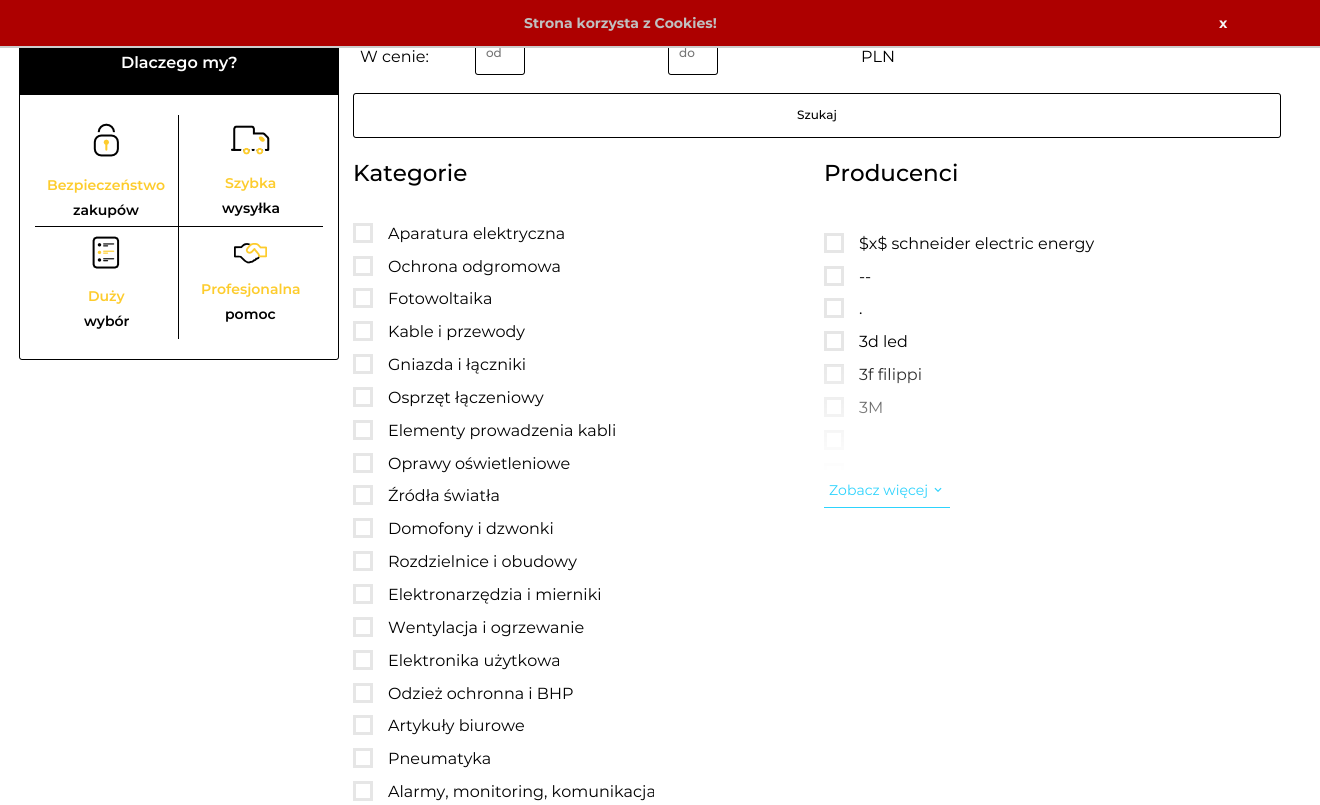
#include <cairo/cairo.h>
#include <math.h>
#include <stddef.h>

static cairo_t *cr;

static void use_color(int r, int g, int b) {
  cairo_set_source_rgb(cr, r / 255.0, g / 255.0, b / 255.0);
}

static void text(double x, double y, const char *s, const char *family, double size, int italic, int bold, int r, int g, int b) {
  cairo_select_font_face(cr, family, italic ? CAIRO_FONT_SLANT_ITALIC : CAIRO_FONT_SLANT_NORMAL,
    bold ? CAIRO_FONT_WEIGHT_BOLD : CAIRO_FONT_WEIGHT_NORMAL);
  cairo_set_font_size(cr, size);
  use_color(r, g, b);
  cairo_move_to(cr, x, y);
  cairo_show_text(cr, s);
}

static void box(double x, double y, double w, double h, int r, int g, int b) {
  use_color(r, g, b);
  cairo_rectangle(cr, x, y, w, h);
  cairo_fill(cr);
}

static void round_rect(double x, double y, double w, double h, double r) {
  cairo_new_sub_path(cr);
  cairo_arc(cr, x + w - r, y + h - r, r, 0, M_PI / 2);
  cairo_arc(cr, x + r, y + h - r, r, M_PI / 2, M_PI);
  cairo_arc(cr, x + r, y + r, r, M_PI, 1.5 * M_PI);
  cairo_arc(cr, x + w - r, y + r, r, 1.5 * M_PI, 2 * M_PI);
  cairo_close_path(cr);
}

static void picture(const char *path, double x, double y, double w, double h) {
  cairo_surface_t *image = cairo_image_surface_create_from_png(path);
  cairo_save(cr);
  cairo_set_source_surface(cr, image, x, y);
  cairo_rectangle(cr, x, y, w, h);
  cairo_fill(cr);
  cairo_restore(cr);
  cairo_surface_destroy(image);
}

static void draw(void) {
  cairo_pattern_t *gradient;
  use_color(255, 255, 255);
  cairo_paint(cr);
  round_rect(19.5, -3.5, 319, 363, 2.5);
  use_color(0, 0, 0);
  cairo_set_line_width(cr, 1);
  cairo_stroke(cr);
  round_rect(475.5, 30.5, 49, 44, 2.5);
  cairo_stroke(cr);
  round_rect(668.5, 30.5, 49, 44, 2.5);
  cairo_stroke(cr);
  box(0, 0, 1320, 46, 173, 0, 0);
  box(0, 46, 1320, 2, 204, 204, 204);
  box(20, 48, 318, 47, 0, 0, 0);
  box(178, 115, 1, 224, 0, 0, 0);
  box(35, 226, 288, 1, 0, 0, 0);
  picture("img_01.png", 93, 123, 26, 34);
  picture("img_02.png", 231, 125, 39, 30);
  picture("img_03.png", 92, 236, 28, 33);
  picture("img_04.png", 234, 243, 33, 21);
  round_rect(353.5, 93.5, 927, 44, 2.5);
  cairo_stroke(cr);
  cairo_rectangle(cr, 354.5, 224.5, 17, 17);
  use_color(230, 230, 230);
  cairo_set_line_width(cr, 3);
  cairo_stroke(cr);
  cairo_rectangle(cr, 354.5, 257.5, 17, 17);
  cairo_stroke(cr);
  cairo_rectangle(cr, 354.5, 289.5, 17, 17);
  cairo_stroke(cr);
  cairo_rectangle(cr, 354.5, 322.5, 17, 17);
  cairo_stroke(cr);
  cairo_rectangle(cr, 354.5, 355.5, 17, 17);
  cairo_stroke(cr);
  cairo_rectangle(cr, 354.5, 388.5, 17, 17);
  cairo_stroke(cr);
  cairo_rectangle(cr, 354.5, 421.5, 17, 17);
  cairo_stroke(cr);
  cairo_rectangle(cr, 354.5, 454.5, 17, 17);
  cairo_stroke(cr);
  cairo_rectangle(cr, 354.5, 486.5, 17, 17);
  cairo_stroke(cr);
  cairo_rectangle(cr, 354.5, 519.5, 17, 17);
  cairo_stroke(cr);
  cairo_rectangle(cr, 354.5, 552.5, 17, 17);
  cairo_stroke(cr);
  cairo_rectangle(cr, 354.5, 585.5, 17, 17);
  cairo_stroke(cr);
  cairo_rectangle(cr, 354.5, 618.5, 17, 17);
  cairo_stroke(cr);
  cairo_rectangle(cr, 354.5, 651.5, 17, 17);
  cairo_stroke(cr);
  cairo_rectangle(cr, 354.5, 684.5, 17, 17);
  cairo_stroke(cr);
  cairo_rectangle(cr, 354.5, 716.5, 17, 17);
  cairo_stroke(cr);
  cairo_rectangle(cr, 354.5, 749.5, 17, 17);
  cairo_stroke(cr);
  cairo_rectangle(cr, 354.5, 782.5, 17, 17);
  cairo_stroke(cr);
  cairo_rectangle(cr, 825.5, 234.5, 17, 17);
  cairo_stroke(cr);
  cairo_rectangle(cr, 825.5, 267.5, 17, 17);
  cairo_stroke(cr);
  cairo_rectangle(cr, 825.5, 299.5, 17, 17);
  cairo_stroke(cr);
  cairo_rectangle(cr, 825.5, 332.5, 17, 17);
  cairo_stroke(cr);
  cairo_rectangle(cr, 825.5, 365.5, 17, 17);
  cairo_stroke(cr);
  cairo_rectangle(cr, 825.5, 398.5, 17, 17);
  cairo_stroke(cr);
  cairo_rectangle(cr, 825.5, 431.5, 17, 17);
  cairo_stroke(cr);
  cairo_save(cr);
  cairo_rectangle(cr, 824, 223, 456, 250);
  cairo_clip(cr);
  cairo_rectangle(cr, 825.5, 464.5, 17, 17);
  cairo_stroke(cr);
  cairo_restore(cr);
  box(824, 507, 126, 1, 45, 211, 253);
  picture("img_05.png", 934, 487, 8, 5);
  text(524, 28, "Strona korzysta z Cookies!", "Montserrat", 14, 0, 1, 192, 192, 192);
  text(1219, 28, "x", "Montserrat", 14, 0, 1, 245, 245, 245);
  text(121, 68, "Dlaczego my?", "Montserrat SemiBold", 16, 0, 0, 255, 255, 255);
  text(47, 190, "Bezpieczeństwo", "Montserrat SemiBold", 14, 0, 0, 253, 204, 45);
  text(73, 215, "zakupów", "Montserrat SemiBold", 14, 0, 0, 0, 0, 0);
  text(225, 188, "Szybka", "Montserrat SemiBold", 14, 0, 0, 253, 204, 45);
  text(222, 213, "wysyłka", "Montserrat SemiBold", 14, 0, 0, 0, 0, 0);
  text(88, 301, "Duży", "Montserrat SemiBold", 14, 0, 0, 253, 204, 45);
  text(84, 326, "wybór", "Montserrat SemiBold", 14, 0, 0, 0, 0, 0);
  text(201, 294, "Profesjonalna", "Montserrat SemiBold", 14, 0, 0, 253, 204, 45);
  text(225, 319, "pomoc", "Montserrat SemiBold", 14, 0, 0, 0, 0, 0);
  text(360, 62, "W cenie:", "Montserrat", 16, 0, 0, 0, 0, 0);
  text(486, 57, "od", "Montserrat Medium", 12, 0, 0, 117, 117, 117);
  text(679, 57, "do", "Montserrat Medium", 12, 0, 0, 117, 117, 117);
  text(861, 62, "PLN", "Montserrat", 16, 0, 0, 0, 0, 0);
  text(797, 119, "Szukaj", "Montserrat Medium", 12, 0, 0, 0, 0, 0);
  text(353, 181, "Kategorie", "Montserrat Medium", 23, 0, 0, 0, 0, 0);
  text(388, 239, "Aparatura elektryczna", "Montserrat", 16, 0, 0, 0, 0, 0);
  text(388, 272, "Ochrona odgromowa", "Montserrat", 16, 0, 0, 0, 0, 0);
  text(388, 304, "Fotowoltaika", "Montserrat", 16, 0, 0, 0, 0, 0);
  text(388, 337, "Kable i przewody", "Montserrat", 16, 0, 0, 0, 0, 0);
  text(388, 370, "Gniazda i łączniki", "Montserrat", 16, 0, 0, 0, 0, 0);
  text(388, 403, "Osprzęt łączeniowy", "Montserrat", 16, 0, 0, 0, 0, 0);
  text(388, 436, "Elementy prowadzenia kabli", "Montserrat", 16, 0, 0, 0, 0, 0);
  text(388, 469, "Oprawy oświetleniowe", "Montserrat", 16, 0, 0, 0, 0, 0);
  text(388, 501, "Źródła światła", "Montserrat", 16, 0, 0, 0, 0, 0);
  text(388, 534, "Domofony i dzwonki", "Montserrat", 16, 0, 0, 0, 0, 0);
  text(388, 567, "Rozdzielnice i obudowy", "Montserrat", 16, 0, 0, 0, 0, 0);
  text(388, 600, "Elektronarzędzia i mierniki", "Montserrat", 16, 0, 0, 0, 0, 0);
  text(388, 633, "Wentylacja i ogrzewanie", "Montserrat", 16, 0, 0, 0, 0, 0);
  text(388, 666, "Elektronika użytkowa", "Montserrat", 16, 0, 0, 0, 0, 0);
  text(388, 699, "Odzież ochronna i BHP", "Montserrat", 16, 0, 0, 0, 0, 0);
  text(388, 731, "Artykuły biurowe", "Montserrat", 16, 0, 0, 0, 0, 0);
  text(388, 764, "Pneumatyka", "Montserrat", 16, 0, 0, 0, 0, 0);
  text(388, 797, "Alarmy, monitoring, komunikacja", "Montserrat", 16, 0, 0, 0, 0, 0);
  text(824, 181, "Producenci", "Montserrat Medium", 23, 0, 0, 0, 0, 0);
  text(859, 249, "$x$ schneider electric energy", "Montserrat", 16, 0, 0, 0, 0, 0);
  text(859, 282, "--", "Montserrat", 16, 0, 0, 0, 0, 0);
  text(859, 314, ".", "Montserrat", 16, 0, 0, 0, 0, 0);
  text(859, 347, "3d led", "Montserrat", 16, 0, 0, 0, 0, 0);
  text(859, 380, "3f filippi", "Montserrat", 16, 0, 0, 0, 0, 0);
  text(859, 413, "3M", "Montserrat", 16, 0, 0, 0, 0, 0);
  gradient = cairo_pattern_create_linear(1052, 353, 1052, 473);
  cairo_pattern_add_color_stop_rgba(gradient, 0, 1, 1, 1, 0);
  cairo_pattern_add_color_stop_rgba(gradient, 1, 1, 1, 1, 1);
  cairo_set_source(cr, gradient);
  cairo_pattern_destroy(gradient);
  cairo_rectangle(cr, 824, 365, 97, 108);
  cairo_fill(cr);
  text(829, 495, "Zobacz więcej", "Montserrat", 14, 0, 0, 45, 211, 253);
}

int main(void) {
  cairo_surface_t *surface = cairo_image_surface_create(CAIRO_FORMAT_RGB24, 1320, 805);
  cr = cairo_create(surface);
  cairo_font_options_t *options = cairo_font_options_create();
  cairo_font_options_set_hint_metrics(options, CAIRO_HINT_METRICS_OFF);
  cairo_font_options_set_hint_style(options, CAIRO_HINT_STYLE_NONE);
  cairo_set_font_options(cr, options);
  cairo_set_miter_limit(cr, 4);
  draw();
  cairo_surface_write_to_png(surface, "out.png");
  cairo_font_options_destroy(options);
  cairo_destroy(cr);
  cairo_surface_destroy(surface);
  return 0;
}
